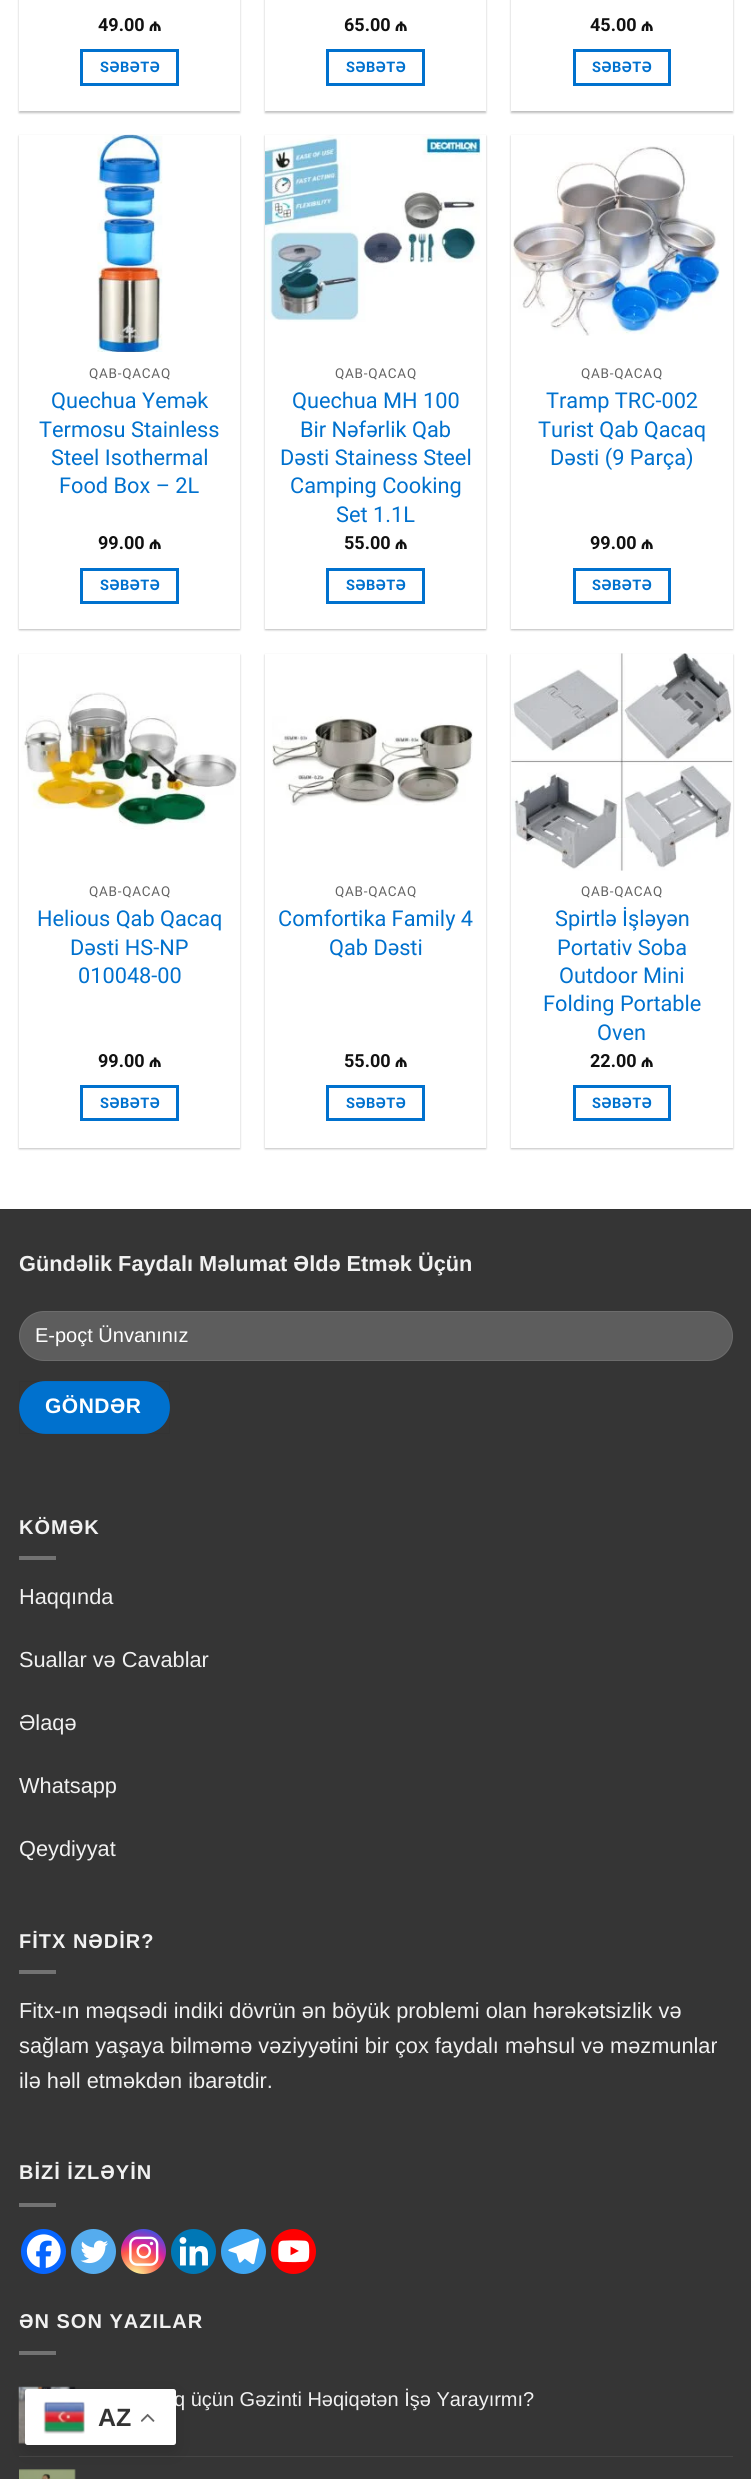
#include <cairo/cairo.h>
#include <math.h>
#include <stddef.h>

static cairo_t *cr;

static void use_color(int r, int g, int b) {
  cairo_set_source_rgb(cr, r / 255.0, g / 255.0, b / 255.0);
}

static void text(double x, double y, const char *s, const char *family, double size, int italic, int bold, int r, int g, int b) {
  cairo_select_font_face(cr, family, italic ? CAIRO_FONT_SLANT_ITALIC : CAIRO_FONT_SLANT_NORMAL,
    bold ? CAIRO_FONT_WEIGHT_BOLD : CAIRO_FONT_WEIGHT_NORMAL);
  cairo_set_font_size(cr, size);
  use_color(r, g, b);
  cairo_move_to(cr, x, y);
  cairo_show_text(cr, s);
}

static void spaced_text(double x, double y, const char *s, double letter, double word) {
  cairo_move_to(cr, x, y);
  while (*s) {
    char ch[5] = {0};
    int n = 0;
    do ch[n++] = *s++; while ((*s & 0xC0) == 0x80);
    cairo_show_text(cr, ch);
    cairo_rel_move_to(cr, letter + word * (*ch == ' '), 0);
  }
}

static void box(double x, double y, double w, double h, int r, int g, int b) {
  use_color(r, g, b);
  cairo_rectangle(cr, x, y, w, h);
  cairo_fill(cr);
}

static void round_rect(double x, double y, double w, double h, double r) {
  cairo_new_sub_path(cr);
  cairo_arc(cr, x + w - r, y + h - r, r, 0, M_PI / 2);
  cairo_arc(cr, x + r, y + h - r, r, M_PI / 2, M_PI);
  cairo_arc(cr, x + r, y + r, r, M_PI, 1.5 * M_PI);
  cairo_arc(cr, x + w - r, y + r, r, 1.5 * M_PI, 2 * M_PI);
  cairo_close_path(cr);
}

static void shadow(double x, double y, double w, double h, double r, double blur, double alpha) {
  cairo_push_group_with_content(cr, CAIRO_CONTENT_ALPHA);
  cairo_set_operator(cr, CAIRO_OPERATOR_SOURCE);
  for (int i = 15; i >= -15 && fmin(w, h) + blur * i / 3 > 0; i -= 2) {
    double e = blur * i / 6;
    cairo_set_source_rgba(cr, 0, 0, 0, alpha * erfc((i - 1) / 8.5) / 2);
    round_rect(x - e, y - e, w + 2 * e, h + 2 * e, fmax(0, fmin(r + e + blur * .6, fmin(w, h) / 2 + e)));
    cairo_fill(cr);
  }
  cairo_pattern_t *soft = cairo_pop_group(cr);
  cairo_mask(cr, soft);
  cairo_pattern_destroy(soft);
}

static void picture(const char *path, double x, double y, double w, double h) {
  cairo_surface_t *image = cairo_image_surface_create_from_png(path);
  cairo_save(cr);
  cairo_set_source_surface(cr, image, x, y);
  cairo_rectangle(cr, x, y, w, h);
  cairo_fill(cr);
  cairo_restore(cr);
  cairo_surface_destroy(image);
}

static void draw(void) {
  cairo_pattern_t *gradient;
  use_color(255, 255, 255);
  cairo_paint(cr);
  cairo_save(cr);
  cairo_set_fill_rule(cr, CAIRO_FILL_RULE_EVEN_ODD);
  cairo_new_path(cr);
  cairo_move_to(cr, 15, 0);
  cairo_line_to(cr, 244, 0);
  cairo_line_to(cr, 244, 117);
  cairo_line_to(cr, 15, 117);
  cairo_close_path(cr);
  cairo_move_to(cr, 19, -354);
  cairo_line_to(cr, 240, -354);
  cairo_line_to(cr, 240, 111);
  cairo_line_to(cr, 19, 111);
  cairo_close_path(cr);
  cairo_clip(cr);
  use_color(0, 0, 0);
  shadow(19, -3, 221, 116, 0, 1, 0.24);
  cairo_restore(cr);
  cairo_rectangle(cr, 81.5, 50.5, 96, 34);
  use_color(0, 113, 206);
  cairo_set_line_width(cr, 3);
  cairo_stroke(cr);
  cairo_save(cr);
  cairo_set_fill_rule(cr, CAIRO_FILL_RULE_EVEN_ODD);
  cairo_new_path(cr);
  cairo_move_to(cr, 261, 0);
  cairo_line_to(cr, 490, 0);
  cairo_line_to(cr, 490, 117);
  cairo_line_to(cr, 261, 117);
  cairo_close_path(cr);
  cairo_move_to(cr, 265, -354);
  cairo_line_to(cr, 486, -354);
  cairo_line_to(cr, 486, 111);
  cairo_line_to(cr, 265, 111);
  cairo_close_path(cr);
  cairo_clip(cr);
  use_color(0, 0, 0);
  shadow(265, -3, 221, 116, 0, 1, 0.24);
  cairo_restore(cr);
  cairo_rectangle(cr, 327.5, 50.5, 96, 34);
  cairo_stroke(cr);
  use_color(0, 0, 0);
  shadow(511, -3, 222, 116, 0, 1, 0.24);
  shadow(514, -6, 216, 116, 0, 2, 0.12);
  box(511, 0, 222, 111, 255, 255, 255);
  cairo_rectangle(cr, 574.5, 50.5, 95, 34);
  use_color(0, 113, 206);
  cairo_stroke(cr);
  use_color(0, 0, 0);
  shadow(19, 136, 221, 494, 0, 1, 0.24);
  shadow(21, 139, 217, 489, 0, 2, 0.12);
  box(19, 135, 221, 494, 255, 255, 255);
  picture("img_01.png", 97, 134, 66, 218);
  cairo_rectangle(cr, 81.5, 569.5, 96, 33);
  use_color(0, 113, 206);
  cairo_stroke(cr);
  use_color(0, 0, 0);
  shadow(265, 136, 221, 494, 0, 1, 0.24);
  shadow(268, 139, 216, 489, 0, 2, 0.12);
  box(265, 135, 221, 494, 255, 255, 255);
  picture("img_02.png", 265, 135, 217, 187);
  cairo_rectangle(cr, 327.5, 569.5, 96, 33);
  use_color(0, 113, 206);
  cairo_stroke(cr);
  use_color(0, 0, 0);
  shadow(511, 136, 222, 494, 0, 1, 0.24);
  shadow(514, 139, 216, 489, 0, 2, 0.12);
  box(511, 135, 222, 494, 255, 255, 255);
  picture("img_03.png", 511, 146, 209, 190);
  cairo_rectangle(cr, 574.5, 569.5, 95, 33);
  use_color(0, 113, 206);
  cairo_stroke(cr);
  use_color(0, 0, 0);
  shadow(19, 655, 221, 494, 0, 1, 0.24);
  box(19, 654, 221, 494, 255, 255, 255);
  picture("img_04.png", 21, 692, 219, 138);
  cairo_rectangle(cr, 81.5, 1086.5, 96, 33);
  use_color(0, 113, 206);
  cairo_stroke(cr);
  use_color(0, 0, 0);
  shadow(265, 655, 221, 494, 0, 1, 0.24);
  box(265, 654, 221, 494, 255, 255, 255);
  picture("img_05.png", 272, 716, 201, 90);
  cairo_rectangle(cr, 327.5, 1086.5, 96, 33);
  use_color(0, 113, 206);
  cairo_stroke(cr);
  use_color(0, 0, 0);
  shadow(511, 655, 222, 494, 0, 1, 0.24);
  box(511, 654, 222, 494, 255, 255, 255);
  picture("img_06.png", 511, 653, 222, 218);
  cairo_rectangle(cr, 574.5, 1086.5, 95, 33);
  use_color(0, 113, 206);
  cairo_stroke(cr);
  box(0, 1210, 751, 1269, 53, 53, 53);
  box(0, 1209, 751, 1, 50, 50, 50);
  use_color(93, 93, 93);
  round_rect(19, 1311, 714, 50, 25);
  cairo_fill(cr);
  round_rect(19.5, 1311.5, 713, 49, 24.5);
  cairo_set_source_rgba(cr, 1, 1, 1, 0.09);
  cairo_set_line_width(cr, 1);
  cairo_stroke(cr);
  use_color(0, 113, 206);
  round_rect(19, 1381, 151, 53, 26.5);
  cairo_fill(cr);
  cairo_rectangle(cr, 19.5, 1381.5, 150, 52);
  cairo_set_source_rgba(cr, 0, 0, 0, 0.05);
  cairo_stroke(cr);
  box(19, 1556, 37, 4, 114, 114, 114);
  box(19, 1970, 37, 4, 114, 114, 114);
  box(19, 2203, 37, 4, 114, 114, 114);
  use_color(7, 101, 254);
  cairo_arc(cr, 43.5, 2251.5, 22.5, 0, 2 * M_PI);
  cairo_fill(cr);
  picture("img_07.png", 26, 2234, 35, 34);
  use_color(85, 172, 238);
  cairo_arc(cr, 93.5, 2251.5, 22.5, 0, 2 * M_PI);
  cairo_fill(cr);
  picture("img_08.png", 80, 2240, 28, 24);
  gradient = cairo_pattern_create_radial(135, 2277, 0, 135, 2277, 58);
  cairo_pattern_add_color_stop_rgba(gradient, 0, 0.992, 0.957, 0.592, 1);
  cairo_pattern_add_color_stop_rgba(gradient, 0.05, 0.992, 0.957, 0.592, 1);
  cairo_pattern_add_color_stop_rgba(gradient, 0.45, 0.992, 0.349, 0.286, 1);
  cairo_pattern_add_color_stop_rgba(gradient, 0.6, 0.839, 0.141, 0.624, 1);
  cairo_pattern_add_color_stop_rgba(gradient, 0.9, 0.157, 0.353, 0.922, 1);
  cairo_set_source(cr, gradient);
  cairo_pattern_destroy(gradient);
  cairo_arc(cr, 143.5, 2251.5, 22.5, 0, 2 * M_PI);
  cairo_fill(cr);
  picture("img_09.png", 129, 2236, 30, 30);
  use_color(0, 119, 181);
  cairo_arc(cr, 193.5, 2251.5, 22.5, 0, 2 * M_PI);
  cairo_fill(cr);
  picture("img_10.png", 179, 2237, 29, 29);
  use_color(61, 165, 241);
  cairo_arc(cr, 243.5, 2251.5, 22.5, 0, 2 * M_PI);
  cairo_fill(cr);
  picture("img_11.png", 228, 2238, 32, 27);
  use_color(255, 0, 0);
  cairo_arc(cr, 293.5, 2251.5, 22.5, 0, 2 * M_PI);
  cairo_fill(cr);
  picture("img_12.png", 278, 2240, 32, 23);
  box(19, 2351, 37, 4, 114, 114, 114);
  picture("img_13.png", 18, 2386, 58, 58);
  box(19, 2456, 714, 1, 69, 69, 69);
  picture("img_14.png", 19, 2469, 57, 10);
  use_color(0, 0, 0);
  shadow(25, 2395, 151, 56, 2.5, 9.5, 0.15);
  text(98, 31, "49.00 ₼", "Roboto", 18, 0, 1, 17, 17, 17);
  cairo_set_font_size(cr, 14.5);
  use_color(0, 113, 206);
  spaced_text(100, 72, "SƏBƏTƏ", 0.5, 0);
  text(344, 31, "65.00 ₼", "Roboto", 18, 0, 1, 17, 17, 17);
  cairo_set_font_size(cr, 14.5);
  use_color(0, 113, 206);
  spaced_text(346, 72, "SƏBƏTƏ", 0.5, 0);
  text(590, 31, "45.00 ₼", "Roboto", 18, 0, 1, 17, 17, 17);
  cairo_set_font_size(cr, 14.5);
  use_color(0, 113, 206);
  spaced_text(592, 72, "SƏBƏTƏ", 0.5, 0);
  cairo_select_font_face(cr, "Roboto", CAIRO_FONT_SLANT_NORMAL, CAIRO_FONT_WEIGHT_NORMAL);
  cairo_set_font_size(cr, 13.5);
  use_color(100, 100, 100);
  spaced_text(89, 378, "QAB-QACAQ", 0.75, 0);
  text(51, 408, "Quechua Yemək", "Roboto", 21.75, 0, 0, 0, 113, 206);
  text(39, 437, "Termosu Stainless", "Roboto", 21.75, 0, 0, 0, 113, 206);
  text(51, 465, "Steel Isothermal", "Roboto", 21.75, 0, 0, 0, 113, 206);
  text(59, 493, "Food Box – 2L", "Roboto", 21.75, 0, 0, 0, 113, 206);
  text(98, 549, "99.00 ₼", "Roboto", 18, 0, 1, 17, 17, 17);
  cairo_set_font_size(cr, 14.5);
  use_color(0, 113, 206);
  spaced_text(100, 590, "SƏBƏTƏ", 0.5, 0);
  cairo_select_font_face(cr, "Roboto", CAIRO_FONT_SLANT_NORMAL, CAIRO_FONT_WEIGHT_NORMAL);
  cairo_set_font_size(cr, 13.5);
  use_color(100, 100, 100);
  spaced_text(335, 378, "QAB-QACAQ", 0.75, 0);
  text(292, 408, "Quechua MH 100", "Roboto", 21.75, 0, 0, 0, 113, 206);
  text(300, 437, "Bir Nəfərlik Qab", "Roboto", 21.75, 0, 0, 0, 113, 206);
  text(280, 465, "Dəsti Stainess Steel", "Roboto", 21.75, 0, 0, 0, 113, 206);
  text(290, 493, "Camping Cooking", "Roboto", 21.75, 0, 0, 0, 113, 206);
  text(336, 522, "Set 1.1L", "Roboto", 21.75, 0, 0, 0, 113, 206);
  text(344, 549, "55.00 ₼", "Roboto", 18, 0, 1, 17, 17, 17);
  cairo_set_font_size(cr, 14.5);
  use_color(0, 113, 206);
  spaced_text(346, 590, "SƏBƏTƏ", 0.5, 0);
  cairo_select_font_face(cr, "Roboto", CAIRO_FONT_SLANT_NORMAL, CAIRO_FONT_WEIGHT_NORMAL);
  cairo_set_font_size(cr, 13.5);
  use_color(100, 100, 100);
  spaced_text(581, 378, "QAB-QACAQ", 0.75, 0);
  text(546, 408, "Tramp TRC-002", "Roboto", 21.75, 0, 0, 0, 113, 206);
  text(538, 437, "Turist Qab Qacaq", "Roboto", 21.75, 0, 0, 0, 113, 206);
  text(550, 465, "Dəsti (9 Parça)", "Roboto", 21.75, 0, 0, 0, 113, 206);
  text(590, 549, "99.00 ₼", "Roboto", 18, 0, 1, 17, 17, 17);
  cairo_set_font_size(cr, 14.5);
  use_color(0, 113, 206);
  spaced_text(592, 590, "SƏBƏTƏ", 0.5, 0);
  cairo_select_font_face(cr, "Roboto", CAIRO_FONT_SLANT_NORMAL, CAIRO_FONT_WEIGHT_NORMAL);
  cairo_set_font_size(cr, 13.5);
  use_color(100, 100, 100);
  spaced_text(89, 896, "QAB-QACAQ", 0.75, 0);
  text(37, 926, "Helious Qab Qacaq", "Roboto", 21.75, 0, 0, 0, 113, 206);
  text(70, 955, "Dəsti HS-NP", "Roboto", 21.75, 0, 0, 0, 113, 206);
  text(78, 983, "010048-00", "Roboto", 21.75, 0, 0, 0, 113, 206);
  text(98, 1067, "99.00 ₼", "Roboto", 18, 0, 1, 17, 17, 17);
  cairo_set_font_size(cr, 14.5);
  use_color(0, 113, 206);
  spaced_text(100, 1108, "SƏBƏTƏ", 0.5, 0);
  cairo_select_font_face(cr, "Roboto", CAIRO_FONT_SLANT_NORMAL, CAIRO_FONT_WEIGHT_NORMAL);
  cairo_set_font_size(cr, 13.5);
  use_color(100, 100, 100);
  spaced_text(335, 896, "QAB-QACAQ", 0.75, 0);
  text(278, 926, "Comfortika Family 4", "Roboto", 21.75, 0, 0, 0, 113, 206);
  text(329, 955, "Qab Dəsti", "Roboto", 21.75, 0, 0, 0, 113, 206);
  text(344, 1067, "55.00 ₼", "Roboto", 18, 0, 1, 17, 17, 17);
  cairo_set_font_size(cr, 14.5);
  use_color(0, 113, 206);
  spaced_text(346, 1108, "SƏBƏTƏ", 0.5, 0);
  cairo_select_font_face(cr, "Roboto", CAIRO_FONT_SLANT_NORMAL, CAIRO_FONT_WEIGHT_NORMAL);
  cairo_set_font_size(cr, 13.5);
  use_color(100, 100, 100);
  spaced_text(581, 896, "QAB-QACAQ", 0.75, 0);
  text(555, 926, "Spirtlə İşləyən", "Roboto", 21.75, 0, 0, 0, 113, 206);
  text(557, 955, "Portativ Soba", "Roboto", 21.75, 0, 0, 0, 113, 206);
  text(559, 983, "Outdoor Mini", "Roboto", 21.75, 0, 0, 0, 113, 206);
  text(543, 1011, "Folding Portable", "Roboto", 21.75, 0, 0, 0, 113, 206);
  text(597, 1040, "Oven", "Roboto", 21.75, 0, 0, 0, 113, 206);
  text(590, 1067, "22.00 ₼", "Roboto", 18, 0, 1, 17, 17, 17);
  cairo_set_font_size(cr, 14.5);
  use_color(0, 113, 206);
  spaced_text(592, 1108, "SƏBƏTƏ", 0.5, 0);
  text(19, 1271, "Gündəlik Faydalı Məlumat Əldə Etmək Üçün", "Liberation Sans", 21.75, 0, 1, 241, 241, 241);
  text(35, 1342, "E-poçt Ünvanınız", "Liberation Sans", 20, 0, 0, 255, 255, 255);
  cairo_select_font_face(cr, "Liberation Sans", CAIRO_FONT_SLANT_NORMAL, CAIRO_FONT_WEIGHT_BOLD);
  cairo_set_font_size(cr, 21);
  spaced_text(45, 1413, "GÖNDƏR", 0.5, 0);
  cairo_set_font_size(cr, 20);
  use_color(241, 241, 241);
  spaced_text(19, 1534, "KÖMƏK", 1, 0);
  text(19, 1604, "Haqqında", "Liberation Sans", 21.75, 0, 0, 241, 241, 241);
  text(19, 1667, "Suallar və Cavablar", "Liberation Sans", 21.75, 0, 0, 241, 241, 241);
  text(19, 1730, "Əlaqə", "Liberation Sans", 21.75, 0, 0, 241, 241, 241);
  text(19, 1793, "Whatsapp", "Liberation Sans", 21.75, 0, 0, 241, 241, 241);
  text(19, 1856, "Qeydiyyat", "Liberation Sans", 21.75, 0, 0, 241, 241, 241);
  cairo_select_font_face(cr, "Liberation Sans", CAIRO_FONT_SLANT_NORMAL, CAIRO_FONT_WEIGHT_BOLD);
  cairo_set_font_size(cr, 20);
  spaced_text(19, 1948, "FİTX NƏDİR?", 1, 0);
  text(19, 2018, "Fitx-ın məqsədi indiki dövrün ən böyük problemi olan hərəkətsizlik və", "Liberation Sans", 21.75, 0, 0, 241, 241, 241);
  text(19, 2053, "sağlam yaşaya bilməmə vəziyyətini bir çox faydalı məhsul və məzmunlar", "Liberation Sans", 21.75, 0, 0, 241, 241, 241);
  text(19, 2088, "ilə həll etməkdən ibarətdir.", "Liberation Sans", 21.75, 0, 0, 241, 241, 241);
  cairo_select_font_face(cr, "Liberation Sans", CAIRO_FONT_SLANT_NORMAL, CAIRO_FONT_WEIGHT_BOLD);
  cairo_set_font_size(cr, 20);
  spaced_text(19, 2179, "BİZİ İZLƏYİN", 1, 0);
  spaced_text(19, 2328, "ƏN SON YAZILAR", 1, 0);
  text(174, 2406, "q üçün Gəzinti Həqiqətən İşə Yarayırmı?", "Liberation Sans", 20, 0, 0, 241, 241, 241);
  use_color(255, 255, 255);
  round_rect(25, 2389, 151, 56, 2.5);
  cairo_fill(cr);
  picture("img_15.png", 43, 2401, 42, 33);
  text(98, 2426, "AZ", "Liberation Sans", 25, 0, 1, 51, 51, 51);
  picture("img_16.png", 141, 2413, 14, 9);
}

int main(void) {
  cairo_surface_t *surface = cairo_image_surface_create(CAIRO_FORMAT_RGB24, 751, 2479);
  cr = cairo_create(surface);
  cairo_font_options_t *options = cairo_font_options_create();
  cairo_font_options_set_hint_metrics(options, CAIRO_HINT_METRICS_OFF);
  cairo_font_options_set_hint_style(options, CAIRO_HINT_STYLE_NONE);
  cairo_set_font_options(cr, options);
  cairo_set_miter_limit(cr, 4);
  draw();
  cairo_surface_write_to_png(surface, "out.png");
  cairo_font_options_destroy(options);
  cairo_destroy(cr);
  cairo_surface_destroy(surface);
  return 0;
}
